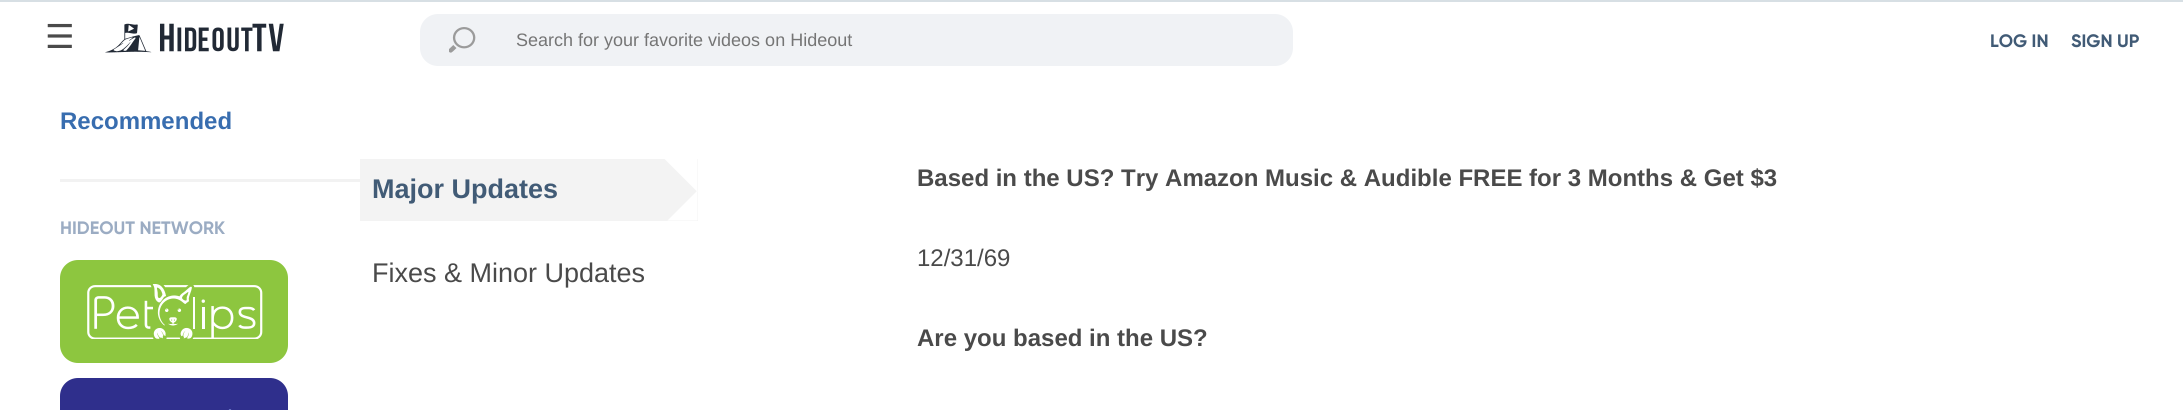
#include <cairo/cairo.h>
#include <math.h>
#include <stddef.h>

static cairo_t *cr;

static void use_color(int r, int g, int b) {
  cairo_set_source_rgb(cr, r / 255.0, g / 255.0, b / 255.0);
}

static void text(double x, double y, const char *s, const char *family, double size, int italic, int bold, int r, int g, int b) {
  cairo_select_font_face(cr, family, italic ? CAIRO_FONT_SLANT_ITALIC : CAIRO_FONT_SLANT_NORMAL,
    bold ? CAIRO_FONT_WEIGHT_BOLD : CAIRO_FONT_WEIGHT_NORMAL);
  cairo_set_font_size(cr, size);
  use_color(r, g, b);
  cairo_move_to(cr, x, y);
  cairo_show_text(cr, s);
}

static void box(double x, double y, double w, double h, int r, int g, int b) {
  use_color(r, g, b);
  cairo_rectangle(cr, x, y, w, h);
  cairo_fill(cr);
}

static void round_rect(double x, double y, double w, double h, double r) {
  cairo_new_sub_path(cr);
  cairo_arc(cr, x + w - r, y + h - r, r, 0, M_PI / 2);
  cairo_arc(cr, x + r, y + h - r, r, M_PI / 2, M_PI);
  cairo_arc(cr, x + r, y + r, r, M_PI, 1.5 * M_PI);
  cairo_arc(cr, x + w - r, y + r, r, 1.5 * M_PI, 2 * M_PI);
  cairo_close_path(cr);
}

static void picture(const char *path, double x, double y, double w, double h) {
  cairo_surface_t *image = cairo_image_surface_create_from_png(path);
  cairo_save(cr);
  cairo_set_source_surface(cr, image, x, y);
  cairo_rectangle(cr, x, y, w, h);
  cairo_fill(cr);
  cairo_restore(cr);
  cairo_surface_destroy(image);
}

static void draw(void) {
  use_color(255, 255, 255);
  cairo_paint(cr);
  box(0, 0, 2183, 2, 215, 223, 228);
  picture("img_01.png", 105, 23, 179, 30);
  use_color(240, 242, 245);
  round_rect(420, 14, 873, 52, 18);
  cairo_fill(cr);
  picture("img_02.png", 449, 27, 27, 26);
  box(60, 179, 300, 3, 242, 242, 242);
  use_color(141, 198, 63);
  round_rect(60, 260, 228, 103, 18);
  cairo_fill(cr);
  picture("img_03.png", 87, 284, 176, 55);
  use_color(47, 47, 140);
  cairo_new_path(cr);
  cairo_move_to(cr, 78, 378);
  cairo_line_to(cr, 270, 378);
  cairo_curve_to(cr, 280, 378, 288, 386, 288, 396);
  cairo_line_to(cr, 288, 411);
  cairo_line_to(cr, 60, 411);
  cairo_line_to(cr, 60, 396);
  cairo_curve_to(cr, 60, 386, 68, 378, 78, 378);
  cairo_close_path(cr);
  cairo_fill(cr);
  picture("img_04.png", 228, 409, 4, 1);
  box(360, 159, 338, 62, 243, 243, 243);
  use_color(255, 255, 255);
  cairo_new_path(cr);
  cairo_move_to(cr, 697.5, 190.5);
  cairo_line_to(cr, 697.5, 220.5);
  cairo_line_to(cr, 667.5, 220.5);
  cairo_close_path(cr);
  cairo_fill(cr);
  cairo_new_path(cr);
  cairo_move_to(cr, 697.5, 159);
  cairo_line_to(cr, 697.5, 192);
  cairo_line_to(cr, 664.5, 159);
  cairo_close_path(cr);
  cairo_fill(cr);
  text(45, 48, "☰", "DejaVu Sans", 33, 0, 0, 74, 74, 74);
  text(516, 46, "Search for your favorite videos on Hideout", "Liberation Sans", 18, 0, 0, 117, 117, 117);
  text(1990, 47, "LOG IN", "Gilroy", 18, 0, 1, 65, 91, 118);
  text(2071, 47, "SIGN UP", "Gilroy", 18, 0, 1, 65, 91, 118);
  text(60, 129, "Recommended", "Liberation Sans", 24, 0, 1, 56, 109, 175);
  text(60, 234, "HIDEOUT NETWORK", "Gilroy", 18, 0, 1, 155, 172, 195);
  text(372, 198, "Major Updates", "Liberation Sans", 27, 0, 1, 65, 91, 118);
  text(372, 282, "Fixes & Minor Updates", "Liberation Sans", 27, 0, 0, 74, 74, 74);
  text(917, 186, "Based in the US? Try Amazon Music & Audible FREE for 3 Months & Get $3", "Liberation Sans", 24, 0, 1, 74, 74, 74);
  text(917, 266, "12/31/69", "Liberation Sans", 24, 0, 0, 74, 74, 74);
  text(917, 346, "Are you based in the US?", "Liberation Sans", 24, 0, 1, 74, 74, 74);
}

int main(void) {
  cairo_surface_t *surface = cairo_image_surface_create(CAIRO_FORMAT_RGB24, 2183, 410);
  cr = cairo_create(surface);
  cairo_font_options_t *options = cairo_font_options_create();
  cairo_font_options_set_hint_metrics(options, CAIRO_HINT_METRICS_OFF);
  cairo_font_options_set_hint_style(options, CAIRO_HINT_STYLE_NONE);
  cairo_set_font_options(cr, options);
  cairo_set_miter_limit(cr, 4);
  draw();
  cairo_surface_write_to_png(surface, "out.png");
  cairo_font_options_destroy(options);
  cairo_destroy(cr);
  cairo_surface_destroy(surface);
  return 0;
}
